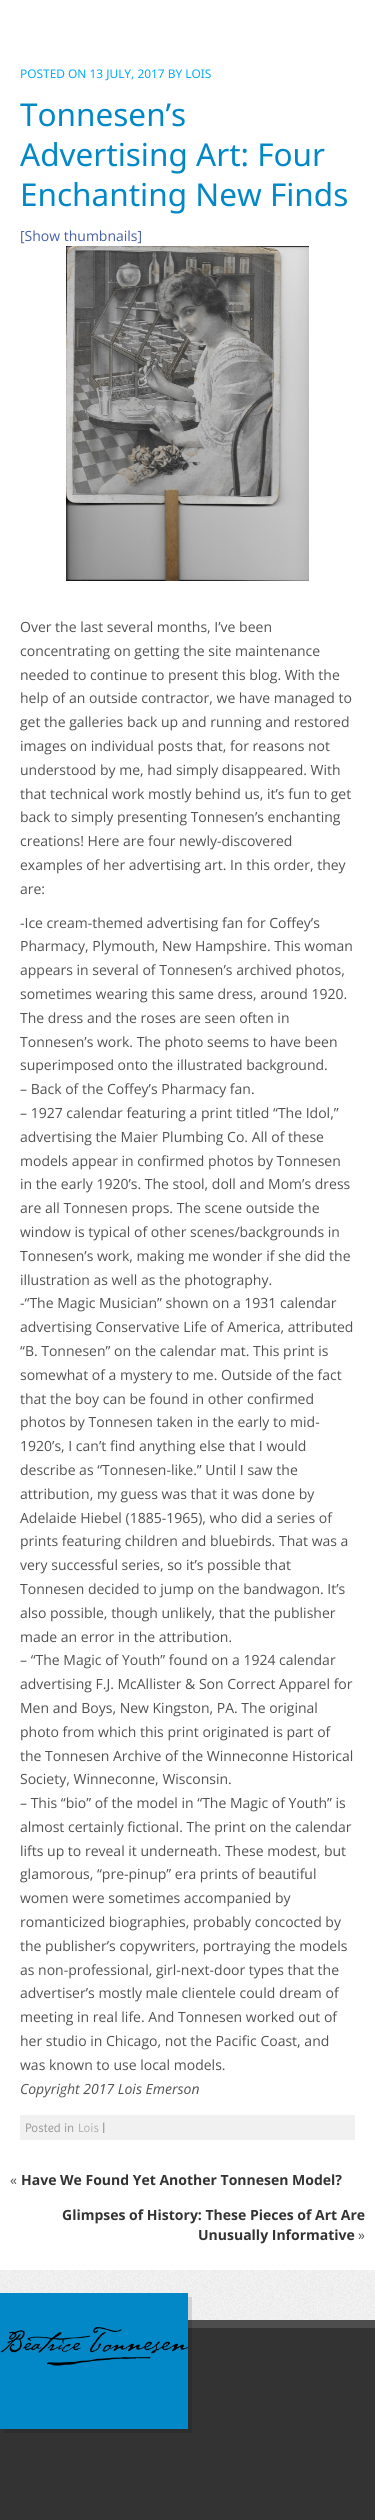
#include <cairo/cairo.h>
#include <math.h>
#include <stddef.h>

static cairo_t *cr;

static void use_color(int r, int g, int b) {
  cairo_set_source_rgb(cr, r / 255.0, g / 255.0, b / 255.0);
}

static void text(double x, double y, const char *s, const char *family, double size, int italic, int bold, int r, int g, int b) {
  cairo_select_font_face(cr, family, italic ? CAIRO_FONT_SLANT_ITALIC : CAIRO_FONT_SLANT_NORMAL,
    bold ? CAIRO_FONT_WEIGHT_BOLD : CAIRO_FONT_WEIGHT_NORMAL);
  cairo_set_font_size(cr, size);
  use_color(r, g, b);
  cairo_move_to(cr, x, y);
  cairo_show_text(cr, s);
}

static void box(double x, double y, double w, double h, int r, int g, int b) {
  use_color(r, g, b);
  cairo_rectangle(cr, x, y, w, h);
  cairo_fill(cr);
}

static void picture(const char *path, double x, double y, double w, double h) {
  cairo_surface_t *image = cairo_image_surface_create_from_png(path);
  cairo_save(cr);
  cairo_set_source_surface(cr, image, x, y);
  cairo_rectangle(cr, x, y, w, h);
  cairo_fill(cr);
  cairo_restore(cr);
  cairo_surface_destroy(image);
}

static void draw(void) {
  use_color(255, 255, 255);
  cairo_paint(cr);
  picture("img_01.png", 0, 2270, 375, 50);
  picture("img_02.png", 66, 246, 243, 335);
  box(20, 2115, 335, 25, 241, 241, 241);
  box(0, 2328, 375, 192, 50, 51, 50);
  box(188, 2320, 187, 8, 76, 77, 76);
  cairo_set_source_rgba(cr, 0, 0, 0, 0.12);
  cairo_new_path(cr);
  cairo_move_to(cr, 4, 2429);
  cairo_line_to(cr, 4, 2433);
  cairo_line_to(cr, 192, 2433);
  cairo_line_to(cr, 192, 2297);
  cairo_line_to(cr, 188, 2297);
  cairo_line_to(cr, 188, 2429);
  cairo_close_path(cr);
  cairo_fill(cr);
  box(0, 2293, 188, 136, 3, 136, 199);
  picture("img_03.png", 0, 2327, 188, 39);
  text(20, 78, "POSTED ON 13 JULY, 2017 BY LOIS", "Noto Sans", 11.9, 0, 0, 4, 170, 249);
  text(20, 126, "Tonnesen’s", "Noto Sans", 31.5, 0, 0, 3, 136, 199);
  text(20, 166, "Advertising Art: Four", "Noto Sans", 31.5, 0, 0, 3, 136, 199);
  text(20, 206, "Enchanting New Finds", "Noto Sans", 31.5, 0, 0, 3, 136, 199);
  text(20, 241, "[Show thumbnails]", "Open Sans", 14, 0, 0, 70, 95, 168);
  text(20, 632, "Over the last several months, I’ve been", "Open Sans", 14, 0, 0, 82, 82, 82);
  text(20, 656, "concentrating on getting the site maintenance", "Open Sans", 14, 0, 0, 82, 82, 82);
  text(20, 680, "needed to continue to present this blog. With the", "Open Sans", 14, 0, 0, 82, 82, 82);
  text(20, 703, "help of an outside contractor, we have managed to", "Open Sans", 14, 0, 0, 82, 82, 82);
  text(20, 727, "get the galleries back up and running and restored", "Open Sans", 14, 0, 0, 82, 82, 82);
  text(20, 751, "images on individual posts that, for reasons not", "Open Sans", 14, 0, 0, 82, 82, 82);
  text(20, 775, "understood by me, had simply disappeared. With", "Open Sans", 14, 0, 0, 82, 82, 82);
  text(20, 799, "that technical work mostly behind us, it’s fun to get", "Open Sans", 14, 0, 0, 82, 82, 82);
  text(20, 822, "back to simply presenting Tonnesen’s enchanting", "Open Sans", 14, 0, 0, 82, 82, 82);
  text(20, 846, "creations! Here are four newly-discovered", "Open Sans", 14, 0, 0, 82, 82, 82);
  text(20, 870, "examples of her advertising art. In this order, they", "Open Sans", 14, 0, 0, 82, 82, 82);
  text(20, 894, "are:", "Open Sans", 14, 0, 0, 82, 82, 82);
  text(20, 928, "-Ice cream-themed advertising fan for Coffey’s", "Open Sans", 14, 0, 0, 82, 82, 82);
  text(20, 951, "Pharmacy, Plymouth, New Hampshire. This woman", "Open Sans", 14, 0, 0, 82, 82, 82);
  text(20, 975, "appears in several of Tonnesen’s archived photos,", "Open Sans", 14, 0, 0, 82, 82, 82);
  text(20, 999, "sometimes wearing this same dress, around 1920.", "Open Sans", 14, 0, 0, 82, 82, 82);
  text(20, 1023, "The dress and the roses are seen often in", "Open Sans", 14, 0, 0, 82, 82, 82);
  text(20, 1047, "Tonnesen’s work. The photo seems to have been", "Open Sans", 14, 0, 0, 82, 82, 82);
  text(20, 1070, "superimposed onto the illustrated background.", "Open Sans", 14, 0, 0, 82, 82, 82);
  text(20, 1094, "– Back of the Coffey’s Pharmacy fan.", "Open Sans", 14, 0, 0, 82, 82, 82);
  text(20, 1118, "– 1927 calendar featuring a print titled “The Idol,”", "Open Sans", 14, 0, 0, 82, 82, 82);
  text(20, 1142, "advertising the Maier Plumbing Co. All of these", "Open Sans", 14, 0, 0, 82, 82, 82);
  text(20, 1166, "models appear in confirmed photos by Tonnesen", "Open Sans", 14, 0, 0, 82, 82, 82);
  text(20, 1189, "in the early 1920’s. The stool, doll and Mom’s dress", "Open Sans", 14, 0, 0, 82, 82, 82);
  text(20, 1213, "are all Tonnesen props. The scene outside the", "Open Sans", 14, 0, 0, 82, 82, 82);
  text(20, 1237, "window is typical of other scenes/backgrounds in", "Open Sans", 14, 0, 0, 82, 82, 82);
  text(20, 1261, "Tonnesen’s work, making me wonder if she did the", "Open Sans", 14, 0, 0, 82, 82, 82);
  text(20, 1285, "illustration as well as the photography.", "Open Sans", 14, 0, 0, 82, 82, 82);
  text(20, 1308, "-“The Magic Musician” shown on a 1931 calendar", "Open Sans", 14, 0, 0, 82, 82, 82);
  text(20, 1332, "advertising Conservative Life of America, attributed", "Open Sans", 14, 0, 0, 82, 82, 82);
  text(20, 1356, "“B. Tonnesen” on the calendar mat. This print is", "Open Sans", 14, 0, 0, 82, 82, 82);
  text(20, 1380, "somewhat of a mystery to me. Outside of the fact", "Open Sans", 14, 0, 0, 82, 82, 82);
  text(20, 1404, "that the boy can be found in other confirmed", "Open Sans", 14, 0, 0, 82, 82, 82);
  text(20, 1427, "photos by Tonnesen taken in the early to mid-", "Open Sans", 14, 0, 0, 82, 82, 82);
  text(20, 1451, "1920’s, I can’t find anything else that I would", "Open Sans", 14, 0, 0, 82, 82, 82);
  text(20, 1475, "describe as “Tonnesen-like.” Until I saw the", "Open Sans", 14, 0, 0, 82, 82, 82);
  text(20, 1499, "attribution, my guess was that it was done by", "Open Sans", 14, 0, 0, 82, 82, 82);
  text(20, 1523, "Adelaide Hiebel (1885-1965), who did a series of", "Open Sans", 14, 0, 0, 82, 82, 82);
  text(20, 1546, "prints featuring children and bluebirds. That was a", "Open Sans", 14, 0, 0, 82, 82, 82);
  text(20, 1570, "very successful series, so it’s possible that", "Open Sans", 14, 0, 0, 82, 82, 82);
  text(20, 1594, "Tonnesen decided to jump on the bandwagon. It’s", "Open Sans", 14, 0, 0, 82, 82, 82);
  text(20, 1618, "also possible, though unlikely, that the publisher", "Open Sans", 14, 0, 0, 82, 82, 82);
  text(20, 1642, "made an error in the attribution.", "Open Sans", 14, 0, 0, 82, 82, 82);
  text(20, 1665, "– “The Magic of Youth” found on a 1924 calendar", "Open Sans", 14, 0, 0, 82, 82, 82);
  text(20, 1689, "advertising F.J. McAllister & Son Correct Apparel for", "Open Sans", 14, 0, 0, 82, 82, 82);
  text(20, 1713, "Men and Boys, New Kingston, PA. The original", "Open Sans", 14, 0, 0, 82, 82, 82);
  text(20, 1737, "photo from which this print originated is part of", "Open Sans", 14, 0, 0, 82, 82, 82);
  text(20, 1761, "the Tonnesen Archive of the Winneconne Historical", "Open Sans", 14, 0, 0, 82, 82, 82);
  text(20, 1784, "Society, Winneconne, Wisconsin.", "Open Sans", 14, 0, 0, 82, 82, 82);
  text(20, 1808, "– This “bio” of the model in “The Magic of Youth” is", "Open Sans", 14, 0, 0, 82, 82, 82);
  text(20, 1832, "almost certainly fictional. The print on the calendar", "Open Sans", 14, 0, 0, 82, 82, 82);
  text(20, 1856, "lifts up to reveal it underneath. These modest, but", "Open Sans", 14, 0, 0, 82, 82, 82);
  text(20, 1879, "glamorous, “pre-pinup” era prints of beautiful", "Open Sans", 14, 0, 0, 82, 82, 82);
  text(20, 1903, "women were sometimes accompanied by", "Open Sans", 14, 0, 0, 82, 82, 82);
  text(20, 1927, "romanticized biographies, probably concocted by", "Open Sans", 14, 0, 0, 82, 82, 82);
  text(20, 1951, "the publisher’s copywriters, portraying the models", "Open Sans", 14, 0, 0, 82, 82, 82);
  text(20, 1975, "as non-professional, girl-next-door types that the", "Open Sans", 14, 0, 0, 82, 82, 82);
  text(20, 1998, "advertiser’s mostly male clientele could dream of", "Open Sans", 14, 0, 0, 82, 82, 82);
  text(20, 2022, "meeting in real life. And Tonnesen worked out of", "Open Sans", 14, 0, 0, 82, 82, 82);
  text(20, 2046, "her studio in Chicago, not the Pacific Coast, and", "Open Sans", 14, 0, 0, 82, 82, 82);
  text(20, 2070, "was known to use local models.", "Open Sans", 14, 0, 0, 82, 82, 82);
  text(20, 2094, "Copyright 2017 Lois Emerson", "Open Sans", 14, 1, 0, 82, 82, 82);
  text(25, 2132, "Posted in", "Imprima", 12.5, 0, 0, 153, 153, 153);
  text(78, 2132, "Lois", "Imprima", 12.5, 0, 0, 177, 177, 177);
  text(102, 2132, "|", "Imprima", 12.5, 0, 0, 153, 153, 153);
  text(10, 2185, "«", "Open Sans", 14, 0, 0, 82, 82, 82);
  text(21, 2185, "Have We Found Yet Another Tonnesen Model?", "Open Sans", 14, 0, 1, 51, 51, 51);
  text(62, 2220, "Glimpses of History: These Pieces of Art Are", "Open Sans", 14, 0, 1, 51, 51, 51);
  text(198, 2240, "Unusually Informative", "Open Sans", 14, 0, 1, 51, 51, 51);
  text(358, 2240, "»", "Open Sans", 14, 0, 0, 82, 82, 82);
}

int main(void) {
  cairo_surface_t *surface = cairo_image_surface_create(CAIRO_FORMAT_RGB24, 375, 2520);
  cr = cairo_create(surface);
  cairo_font_options_t *options = cairo_font_options_create();
  cairo_font_options_set_hint_metrics(options, CAIRO_HINT_METRICS_OFF);
  cairo_font_options_set_hint_style(options, CAIRO_HINT_STYLE_NONE);
  cairo_set_font_options(cr, options);
  cairo_set_miter_limit(cr, 4);
  draw();
  cairo_surface_write_to_png(surface, "out.png");
  cairo_font_options_destroy(options);
  cairo_destroy(cr);
  cairo_surface_destroy(surface);
  return 0;
}
